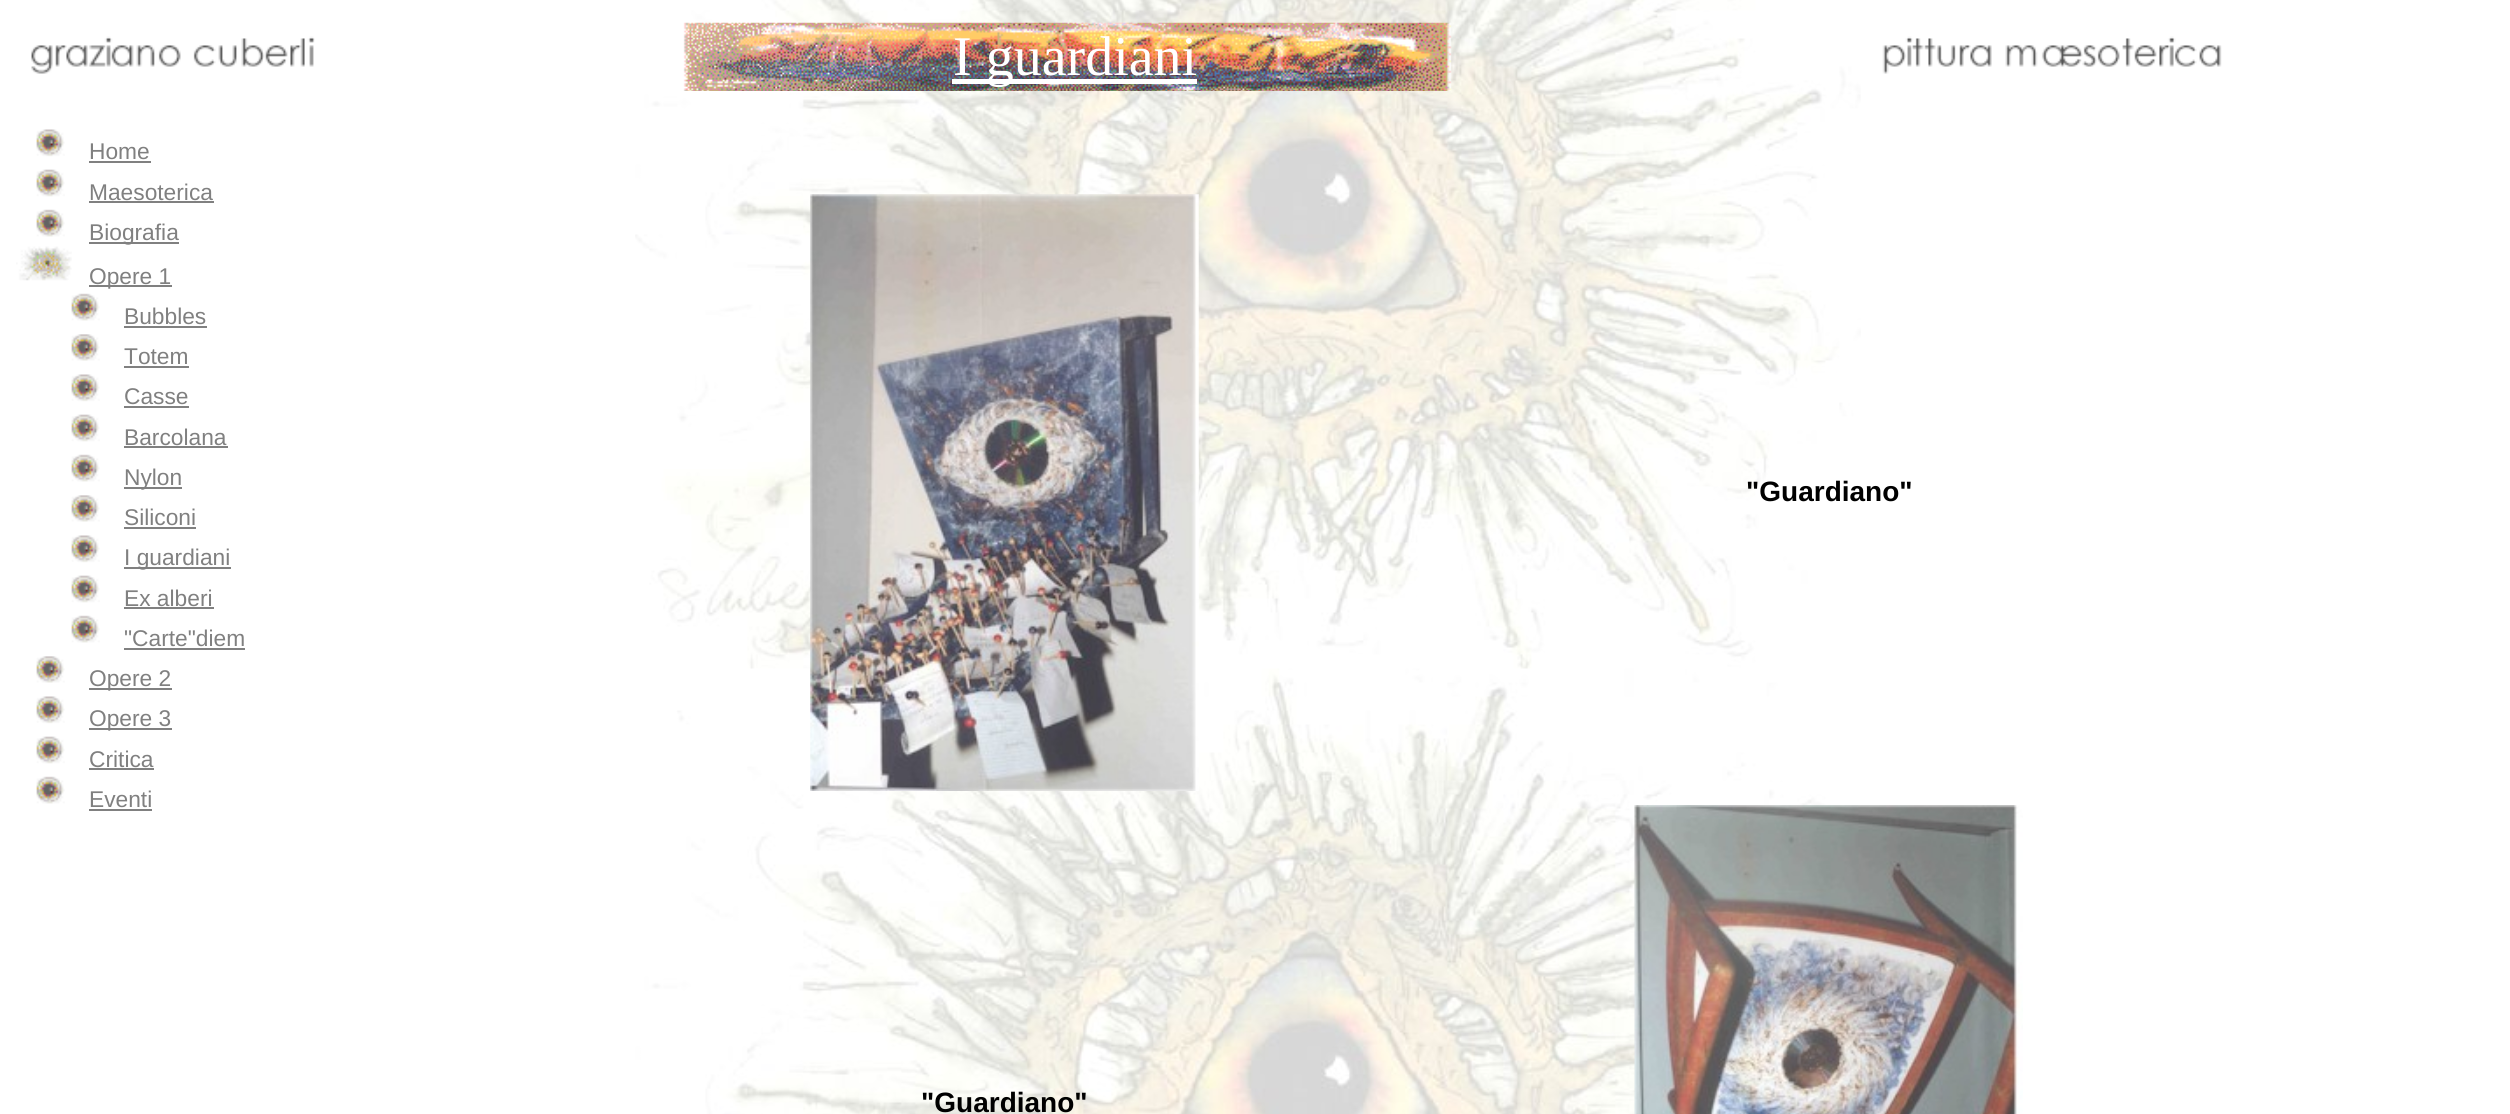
#include <cairo/cairo.h>
#include <math.h>
#include <stddef.h>

static cairo_t *cr;

static void use_color(int r, int g, int b) {
  cairo_set_source_rgb(cr, r / 255.0, g / 255.0, b / 255.0);
}

static void text(double x, double y, const char *s, const char *family, double size, int italic, int bold, int r, int g, int b) {
  cairo_select_font_face(cr, family, italic ? CAIRO_FONT_SLANT_ITALIC : CAIRO_FONT_SLANT_NORMAL,
    bold ? CAIRO_FONT_WEIGHT_BOLD : CAIRO_FONT_WEIGHT_NORMAL);
  cairo_set_font_size(cr, size);
  use_color(r, g, b);
  cairo_move_to(cr, x, y);
  cairo_show_text(cr, s);
}

static void box(double x, double y, double w, double h, int r, int g, int b) {
  use_color(r, g, b);
  cairo_rectangle(cr, x, y, w, h);
  cairo_fill(cr);
}

static void picture(const char *path, double x, double y, double w, double h) {
  cairo_surface_t *image = cairo_image_surface_create_from_png(path);
  cairo_save(cr);
  cairo_set_source_surface(cr, image, x, y);
  cairo_rectangle(cr, x, y, w, h);
  cairo_fill(cr);
  cairo_restore(cr);
  cairo_surface_destroy(image);
}

static void draw(void) {
  use_color(255, 255, 255);
  cairo_paint(cr);
  picture("img_01.png", 635, 0, 1226, 1114);
  picture("img_02.png", 31, 36, 284, 38);
  picture("img_03.png", 683, 22, 769, 69);
  box(952, 79, 245, 5, 255, 255, 255);
  picture("img_04.png", 1882, 36, 340, 38);
  picture("img_05.png", 36, 129, 29, 28);
  box(89, 161, 62, 2, 128, 128, 128);
  picture("img_06.png", 36, 169, 29, 28);
  box(89, 201, 125, 2, 128, 128, 128);
  picture("img_07.png", 36, 209, 29, 28);
  box(89, 242, 90, 2, 128, 128, 128);
  picture("img_08.png", 16, 246, 56, 35);
  box(89, 285, 83, 2, 128, 128, 128);
  picture("img_09.png", 71, 293, 29, 28);
  box(124, 326, 83, 2, 128, 128, 128);
  picture("img_10.png", 71, 334, 29, 27);
  box(124, 366, 65, 2, 128, 128, 128);
  picture("img_11.png", 71, 374, 29, 28);
  box(124, 406, 65, 2, 128, 128, 128);
  picture("img_12.png", 71, 414, 29, 28);
  box(124, 446, 104, 2, 128, 128, 128);
  picture("img_09.png", 71, 454, 29, 28);
  box(124, 487, 58, 2, 128, 128, 128);
  picture("img_10.png", 71, 495, 29, 27);
  box(124, 527, 72, 2, 128, 128, 128);
  picture("img_11.png", 71, 535, 29, 28);
  box(124, 567, 107, 2, 128, 128, 128);
  picture("img_12.png", 71, 575, 29, 28);
  box(124, 607, 90, 2, 128, 128, 128);
  picture("img_09.png", 71, 615, 29, 28);
  box(124, 648, 121, 2, 128, 128, 128);
  picture("img_13.png", 36, 656, 29, 27);
  box(89, 688, 83, 2, 128, 128, 128);
  picture("img_05.png", 36, 696, 29, 28);
  box(89, 728, 83, 2, 128, 128, 128);
  picture("img_06.png", 36, 736, 29, 28);
  box(89, 768, 65, 2, 128, 128, 128);
  picture("img_14.png", 36, 776, 29, 28);
  box(89, 809, 63, 2, 128, 128, 128);
  picture("img_15.png", 810, 194, 389, 597);
  picture("img_16.png", 1634, 805, 389, 309);
  text(953, 75, "I guardiani", "Liberation Serif", 56, 0, 0, 255, 255, 255);
  text(89, 159, "Home", "Liberation Sans", 22.75, 0, 0, 128, 128, 128);
  text(89, 200, "Maesoterica", "Liberation Sans", 22.75, 0, 0, 128, 128, 128);
  text(89, 240, "Biografia", "Liberation Sans", 22.75, 0, 0, 128, 128, 128);
  text(89, 284, "Opere 1", "Liberation Sans", 22.75, 0, 0, 128, 128, 128);
  text(124, 324, "Bubbles", "Liberation Sans", 22.75, 0, 0, 128, 128, 128);
  text(124, 364, "Totem", "Liberation Sans", 22.75, 0, 0, 128, 128, 128);
  text(124, 404, "Casse", "Liberation Sans", 22.75, 0, 0, 128, 128, 128);
  text(124, 445, "Barcolana", "Liberation Sans", 22.75, 0, 0, 128, 128, 128);
  text(124, 485, "Nylon", "Liberation Sans", 22.75, 0, 0, 128, 128, 128);
  text(124, 525, "Siliconi", "Liberation Sans", 22.75, 0, 0, 128, 128, 128);
  text(124, 565, "I guardiani", "Liberation Sans", 22.75, 0, 0, 128, 128, 128);
  text(124, 606, "Ex alberi", "Liberation Sans", 22.75, 0, 0, 128, 128, 128);
  text(124, 646, "\"Carte\"diem", "Liberation Sans", 22.75, 0, 0, 128, 128, 128);
  text(89, 686, "Opere 2", "Liberation Sans", 22.75, 0, 0, 128, 128, 128);
  text(89, 726, "Opere 3", "Liberation Sans", 22.75, 0, 0, 128, 128, 128);
  text(89, 767, "Critica", "Liberation Sans", 22.75, 0, 0, 128, 128, 128);
  text(89, 807, "Eventi", "Liberation Sans", 22.75, 0, 0, 128, 128, 128);
  text(1746, 501, "\"Guardiano\"", "Liberation Sans", 28, 0, 1, 0, 0, 0);
  text(921, 1112, "\"Guardiano\"", "Liberation Sans", 28, 0, 1, 0, 0, 0);
}

int main(void) {
  cairo_surface_t *surface = cairo_image_surface_create(CAIRO_FORMAT_RGB24, 2510, 1114);
  cr = cairo_create(surface);
  cairo_font_options_t *options = cairo_font_options_create();
  cairo_font_options_set_hint_metrics(options, CAIRO_HINT_METRICS_OFF);
  cairo_font_options_set_hint_style(options, CAIRO_HINT_STYLE_NONE);
  cairo_set_font_options(cr, options);
  cairo_set_miter_limit(cr, 4);
  draw();
  cairo_surface_write_to_png(surface, "out.png");
  cairo_font_options_destroy(options);
  cairo_destroy(cr);
  cairo_surface_destroy(surface);
  return 0;
}
